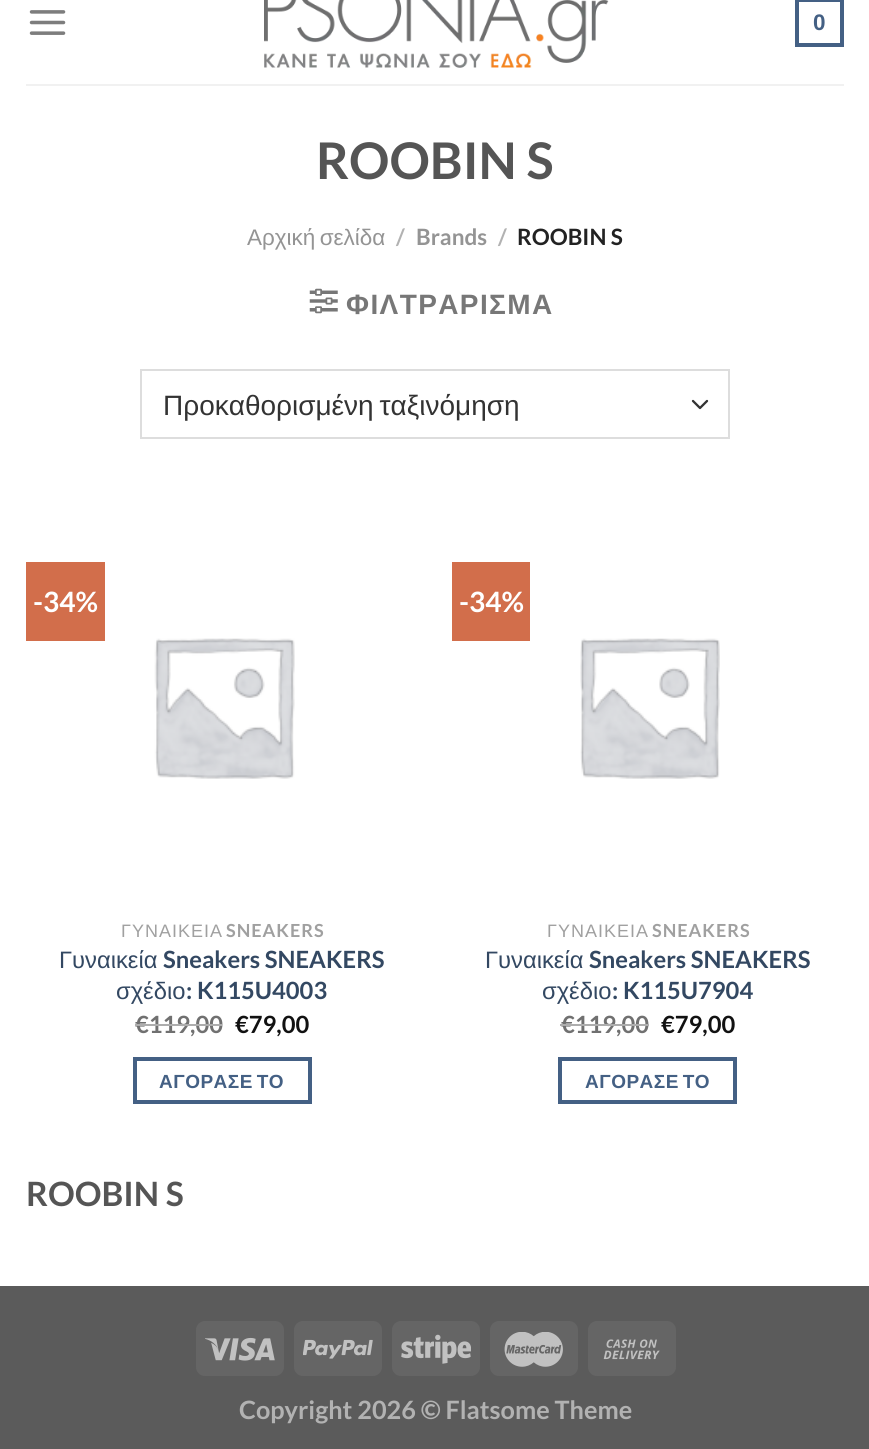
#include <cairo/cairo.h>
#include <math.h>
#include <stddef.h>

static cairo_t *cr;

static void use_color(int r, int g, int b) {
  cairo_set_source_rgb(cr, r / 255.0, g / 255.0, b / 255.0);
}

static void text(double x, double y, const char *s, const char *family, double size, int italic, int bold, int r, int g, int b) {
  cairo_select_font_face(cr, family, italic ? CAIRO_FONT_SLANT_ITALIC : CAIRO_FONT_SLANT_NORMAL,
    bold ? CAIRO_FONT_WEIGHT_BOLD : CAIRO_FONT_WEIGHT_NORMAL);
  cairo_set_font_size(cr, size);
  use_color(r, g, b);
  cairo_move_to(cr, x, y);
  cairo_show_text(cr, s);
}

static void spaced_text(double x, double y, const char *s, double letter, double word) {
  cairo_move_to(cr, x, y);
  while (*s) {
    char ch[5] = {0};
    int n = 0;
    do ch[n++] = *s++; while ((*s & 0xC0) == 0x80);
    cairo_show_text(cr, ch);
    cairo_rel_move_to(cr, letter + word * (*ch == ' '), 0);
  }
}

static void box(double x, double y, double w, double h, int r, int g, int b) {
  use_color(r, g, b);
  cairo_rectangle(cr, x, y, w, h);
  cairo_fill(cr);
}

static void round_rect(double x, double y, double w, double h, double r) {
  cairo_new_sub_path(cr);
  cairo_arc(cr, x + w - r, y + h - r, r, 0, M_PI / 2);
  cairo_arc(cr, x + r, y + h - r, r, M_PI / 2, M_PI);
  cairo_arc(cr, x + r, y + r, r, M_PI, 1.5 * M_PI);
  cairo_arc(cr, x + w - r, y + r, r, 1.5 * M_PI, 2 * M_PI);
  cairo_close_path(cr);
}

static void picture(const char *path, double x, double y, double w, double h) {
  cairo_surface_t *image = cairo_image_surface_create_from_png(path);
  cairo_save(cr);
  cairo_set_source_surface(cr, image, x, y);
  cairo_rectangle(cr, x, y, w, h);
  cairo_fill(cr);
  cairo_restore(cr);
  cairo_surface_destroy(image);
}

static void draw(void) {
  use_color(255, 255, 255);
  cairo_paint(cr);
  picture("img_01.png", 29, 10, 37, 25);
  picture("img_02.png", 264, 0, 345, 68);
  cairo_rectangle(cr, 797, 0, 45, 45);
  use_color(68, 96, 132);
  cairo_set_line_width(cr, 4);
  cairo_stroke(cr);
  box(26, 84, 818, 2, 241, 241, 241);
  picture("img_03.png", 309, 288, 29, 26);
  cairo_new_path(cr);
  cairo_move_to(cr, 693, 401);
  cairo_line_to(cr, 700, 408);
  cairo_line_to(cr, 707, 401);
  use_color(51, 51, 51);
  cairo_set_line_width(cr, 2.3);
  cairo_set_line_cap(cr, CAIRO_LINE_CAP_ROUND);
  cairo_set_line_join(cr, CAIRO_LINE_JOIN_ROUND);
  cairo_stroke(cr);
  cairo_rectangle(cr, 141, 370, 588, 68);
  use_color(221, 221, 221);
  cairo_set_line_width(cr, 2);
  cairo_set_line_cap(cr, CAIRO_LINE_CAP_BUTT);
  cairo_set_line_join(cr, CAIRO_LINE_JOIN_MITER);
  cairo_stroke(cr);
  box(26, 562, 79, 79, 210, 110, 75);
  picture("img_04.png", 154, 638, 141, 141);
  cairo_rectangle(cr, 135, 1059, 175, 43);
  use_color(68, 96, 132);
  cairo_set_line_width(cr, 4);
  cairo_stroke(cr);
  box(452, 562, 78, 79, 210, 110, 75);
  picture("img_05.png", 580, 638, 140, 141);
  cairo_rectangle(cr, 560, 1059, 175, 43);
  use_color(68, 96, 132);
  cairo_stroke(cr);
  box(0, 1286, 869, 163, 91, 91, 91);
  use_color(101, 101, 101);
  round_rect(196, 1321, 88, 55, 9);
  cairo_fill(cr);
  picture("img_06.png", 205, 1337, 70, 24);
  round_rect(294, 1321, 88, 55, 9);
  cairo_fill(cr);
  picture("img_07.png", 303, 1339, 70, 20);
  round_rect(392, 1321, 88, 55, 9);
  cairo_fill(cr);
  picture("img_08.png", 401, 1334, 70, 30);
  round_rect(490, 1321, 88, 55, 9);
  cairo_fill(cr);
  picture("img_09.png", 504, 1332, 59, 35);
  round_rect(588, 1321, 88, 55, 9);
  cairo_fill(cr);
  picture("img_10.png", 603, 1339, 57, 21);
  text(813, 30, "0", "Liberation Sans", 22.5, 0, 1, 68, 96, 132);
  text(316, 179, "ROOBIN S", "Lato", 50.5, 0, 1, 85, 85, 85);
  cairo_select_font_face(cr, "Liberation Sans", CAIRO_FONT_SLANT_NORMAL, CAIRO_FONT_WEIGHT_NORMAL);
  cairo_set_font_size(cr, 22.5);
  use_color(148, 148, 148);
  spaced_text(247, 245, "Αρχική σελίδα", 0, -2);
  text(396, 245, "/", "Lato", 22.5, 0, 1, 178, 178, 178);
  text(416, 245, "Brands", "Lato", 22.5, 0, 1, 148, 148, 148);
  text(498, 245, "/", "Lato", 22.5, 0, 1, 178, 178, 178);
  text(517, 245, "ROOBIN S", "Lato", 22.5, 0, 1, 34, 34, 34);
  cairo_select_font_face(cr, "Liberation Sans", CAIRO_FONT_SLANT_NORMAL, CAIRO_FONT_WEIGHT_BOLD);
  cairo_set_font_size(cr, 28);
  use_color(119, 119, 119);
  spaced_text(346, 314, "ΦΙΛΤΡΑΡΙΣΜΑ", 1.4, 0);
  cairo_select_font_face(cr, "Liberation Sans", CAIRO_FONT_SLANT_NORMAL, CAIRO_FONT_WEIGHT_NORMAL);
  use_color(51, 51, 51);
  spaced_text(163, 415, "Προκαθορισμένη ταξινόμηση", 0, -2);
  text(33, 612, "-34%", "Lato", 28, 0, 1, 255, 255, 255);
  cairo_select_font_face(cr, "Liberation Sans", CAIRO_FONT_SLANT_NORMAL, CAIRO_FONT_WEIGHT_NORMAL);
  cairo_set_font_size(cr, 18);
  use_color(160, 160, 160);
  spaced_text(121, 937, "ΓΥΝΑΙΚΕΙΑ", 1, 0);
  cairo_select_font_face(cr, "Lato", CAIRO_FONT_SLANT_NORMAL, CAIRO_FONT_WEIGHT_BOLD);
  spaced_text(226, 937, "SNEAKERS", 1, 0);
  text(59, 968, "Γυναικεία", "Liberation Sans", 23.75, 0, 0, 51, 72, 98);
  text(163, 968, "Sneakers SNEAKERS", "Lato", 23.75, 0, 1, 51, 72, 98);
  text(116, 999, "σχέδιο", "Liberation Sans", 23.75, 0, 0, 51, 72, 98);
  text(186, 999, ": K115U4003", "Lato", 23.75, 0, 1, 51, 72, 98);
  text(135, 1033, "€119,00", "Lato", 23.75, 0, 1, 112, 112, 112);
  box(135, 1024, 87, 2, 173, 173, 173);
  text(235, 1033, "€79,00", "Lato", 23.75, 0, 1, 17, 17, 17);
  cairo_select_font_face(cr, "Liberation Sans", CAIRO_FONT_SLANT_NORMAL, CAIRO_FONT_WEIGHT_BOLD);
  cairo_set_font_size(cr, 19);
  use_color(68, 96, 132);
  spaced_text(159, 1088, "ΑΓΟΡΑΣΕ ΤΟ", 0.5, -2);
  text(459, 612, "-34%", "Lato", 28, 0, 1, 255, 255, 255);
  cairo_select_font_face(cr, "Liberation Sans", CAIRO_FONT_SLANT_NORMAL, CAIRO_FONT_WEIGHT_NORMAL);
  cairo_set_font_size(cr, 18);
  use_color(160, 160, 160);
  spaced_text(547, 937, "ΓΥΝΑΙΚΕΙΑ", 1, 0);
  cairo_select_font_face(cr, "Lato", CAIRO_FONT_SLANT_NORMAL, CAIRO_FONT_WEIGHT_BOLD);
  spaced_text(652, 937, "SNEAKERS", 1, 0);
  text(485, 968, "Γυναικεία", "Liberation Sans", 23.75, 0, 0, 51, 72, 98);
  text(589, 968, "Sneakers SNEAKERS", "Lato", 23.75, 0, 1, 51, 72, 98);
  text(542, 999, "σχέδιο", "Liberation Sans", 23.75, 0, 0, 51, 72, 98);
  text(612, 999, ": K115U7904", "Lato", 23.75, 0, 1, 51, 72, 98);
  text(561, 1033, "€119,00", "Lato", 23.75, 0, 1, 112, 112, 112);
  box(560, 1024, 89, 2, 173, 173, 173);
  text(661, 1033, "€79,00", "Lato", 23.75, 0, 1, 17, 17, 17);
  cairo_select_font_face(cr, "Liberation Sans", CAIRO_FONT_SLANT_NORMAL, CAIRO_FONT_WEIGHT_BOLD);
  cairo_set_font_size(cr, 19);
  use_color(68, 96, 132);
  spaced_text(585, 1088, "ΑΓΟΡΑΣΕ ΤΟ", 0.5, -2);
  text(26, 1206, "ROOBIN S", "Lato", 33.5, 0, 1, 85, 85, 85);
  text(239, 1419, "Copyright 2026 © Flatsome Theme", "Lato", 25.25, 0, 1, 178, 178, 178);
}

int main(void) {
  cairo_surface_t *surface = cairo_image_surface_create(CAIRO_FORMAT_RGB24, 869, 1449);
  cr = cairo_create(surface);
  cairo_font_options_t *options = cairo_font_options_create();
  cairo_font_options_set_hint_metrics(options, CAIRO_HINT_METRICS_OFF);
  cairo_font_options_set_hint_style(options, CAIRO_HINT_STYLE_NONE);
  cairo_set_font_options(cr, options);
  cairo_set_miter_limit(cr, 4);
  draw();
  cairo_surface_write_to_png(surface, "out.png");
  cairo_font_options_destroy(options);
  cairo_destroy(cr);
  cairo_surface_destroy(surface);
  return 0;
}
